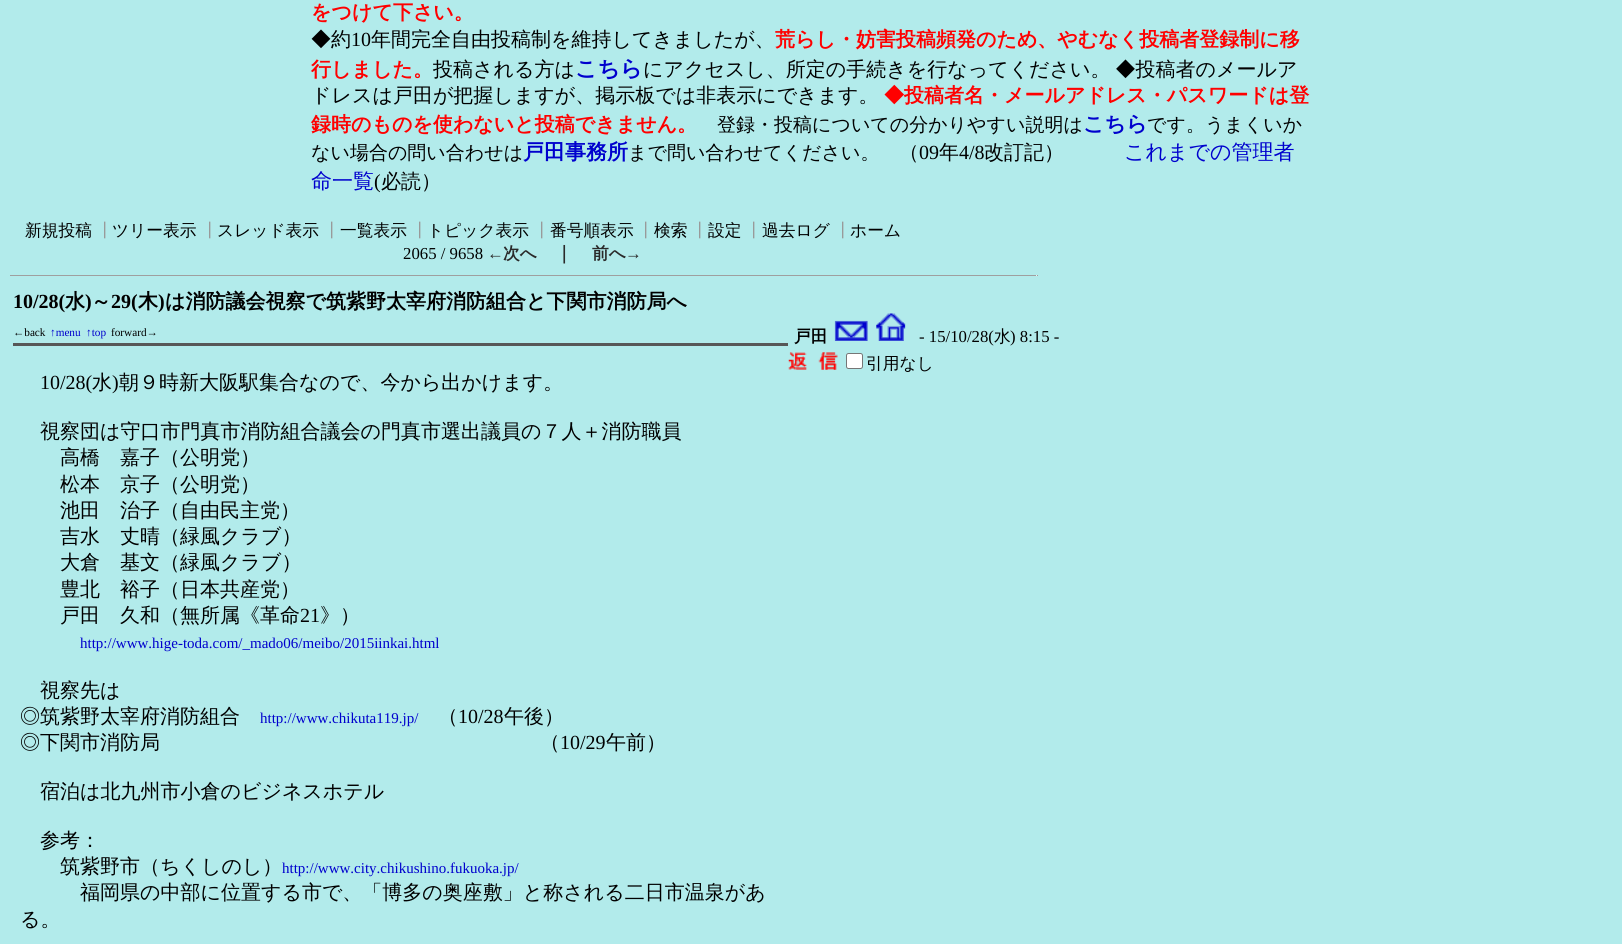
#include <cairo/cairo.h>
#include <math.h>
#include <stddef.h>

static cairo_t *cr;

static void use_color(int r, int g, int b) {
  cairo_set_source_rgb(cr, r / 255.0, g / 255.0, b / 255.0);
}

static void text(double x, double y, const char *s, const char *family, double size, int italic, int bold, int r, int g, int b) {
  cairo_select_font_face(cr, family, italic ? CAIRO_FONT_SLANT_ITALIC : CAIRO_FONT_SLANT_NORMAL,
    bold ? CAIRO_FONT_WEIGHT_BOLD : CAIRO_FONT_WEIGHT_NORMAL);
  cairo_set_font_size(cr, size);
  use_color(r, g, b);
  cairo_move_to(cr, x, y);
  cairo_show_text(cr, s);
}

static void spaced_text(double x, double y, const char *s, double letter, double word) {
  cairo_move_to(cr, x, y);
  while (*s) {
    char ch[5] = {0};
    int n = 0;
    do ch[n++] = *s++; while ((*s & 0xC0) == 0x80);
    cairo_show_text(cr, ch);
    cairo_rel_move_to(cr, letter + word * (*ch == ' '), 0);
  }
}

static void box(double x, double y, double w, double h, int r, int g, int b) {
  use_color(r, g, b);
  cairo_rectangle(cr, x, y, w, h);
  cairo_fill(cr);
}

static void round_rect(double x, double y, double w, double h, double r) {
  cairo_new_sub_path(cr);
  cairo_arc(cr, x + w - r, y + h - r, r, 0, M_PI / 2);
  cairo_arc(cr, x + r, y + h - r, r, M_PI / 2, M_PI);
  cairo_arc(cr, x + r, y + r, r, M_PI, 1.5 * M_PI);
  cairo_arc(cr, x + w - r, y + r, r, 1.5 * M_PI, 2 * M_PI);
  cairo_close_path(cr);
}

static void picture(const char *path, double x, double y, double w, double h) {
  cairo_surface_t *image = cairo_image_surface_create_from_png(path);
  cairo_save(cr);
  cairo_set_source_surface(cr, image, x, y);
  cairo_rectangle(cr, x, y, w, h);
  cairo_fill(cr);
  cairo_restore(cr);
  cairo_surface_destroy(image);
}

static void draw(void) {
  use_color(178, 235, 235);
  cairo_paint(cr);
  box(10, 275, 1028, 1, 159, 159, 159);
  box(1036, 275, 1, 1, 238, 238, 238);
  box(13, 343, 775, 3, 87, 87, 87);
  picture("img_01.png", 834, 320, 34, 21);
  picture("img_02.png", 876, 313, 30, 28);
  picture("img_03.png", 788, 352, 50, 18);
  use_color(255, 255, 255);
  round_rect(846.5, 353.5, 16, 15, 2);
  cairo_fill_preserve(cr);
  use_color(118, 118, 118);
  cairo_set_line_width(cr, 1);
  cairo_stroke(cr);
  text(311, 19, "をつけて下さい。", "WenQuanYi Zen Hei", 20, 0, 1, 255, 0, 0);
  text(311, 46, "◆約", "WenQuanYi Zen Hei Medium", 20, 0, 0, 0, 0, 0);
  text(351, 46, "10", "Liberation Serif", 20, 0, 0, 0, 0, 0);
  text(371, 46, "年間完全自由投稿制を維持してきましたが、", "WenQuanYi Zen Hei Medium", 20, 0, 0, 0, 0, 0);
  text(775, 46, "荒らし・妨害投稿頻発のため、やむなく投稿者登録制に移", "WenQuanYi Zen Hei", 20, 0, 1, 255, 0, 0);
  text(311, 76, "行しました。", "WenQuanYi Zen Hei", 20, 0, 1, 255, 0, 0);
  text(433, 76, "投稿される方は", "WenQuanYi Zen Hei Medium", 20, 0, 0, 0, 0, 0);
  text(575, 76, "こちら", "WenQuanYi Zen Hei", 22, 0, 1, 0, 0, 205);
  cairo_select_font_face(cr, "WenQuanYi Zen Hei Medium", CAIRO_FONT_SLANT_NORMAL, CAIRO_FONT_WEIGHT_NORMAL);
  cairo_set_font_size(cr, 20);
  use_color(0, 0, 0);
  spaced_text(643, 76, "にアクセスし、所定の手続きを行なってください。 ◆投稿者のメールア", 0, -1);
  text(311, 102, "ドレスは戸田が把握しますが、掲示板では非表示にできます。", "WenQuanYi Zen Hei Medium", 20, 0, 0, 0, 0, 0);
  text(884, 102, "◆投稿者名・メールアドレス・パスワードは登", "WenQuanYi Zen Hei", 20, 0, 1, 255, 0, 0);
  text(311, 131, "録時のものを使わないと投稿できません。", "WenQuanYi Zen Hei", 20, 0, 1, 255, 0, 0);
  text(717, 131, "登録・投稿についての分かりやすい説明は", "WenQuanYi Zen Hei Medium", 19, 0, 0, 0, 0, 0);
  text(1083, 131, "こちら", "WenQuanYi Zen Hei", 21, 0, 1, 0, 0, 205);
  text(1147, 131, "です。うまくいか", "WenQuanYi Zen Hei Medium", 19, 0, 0, 0, 0, 0);
  text(311, 159, "ない場合の問い合わせは", "WenQuanYi Zen Hei Medium", 19, 0, 0, 0, 0, 0);
  text(523, 159, "戸田事務所", "WenQuanYi Zen Hei", 21, 0, 1, 0, 0, 205);
  text(628, 159, "まで問い合わせてください。", "WenQuanYi Zen Hei Medium", 19, 0, 0, 0, 0, 0);
  text(899, 159, "（", "WenQuanYi Zen Hei Medium", 20, 0, 0, 0, 0, 0);
  text(919, 159, "09", "Liberation Serif", 20, 0, 0, 0, 0, 0);
  text(939, 159, "年", "WenQuanYi Zen Hei Medium", 20, 0, 0, 0, 0, 0);
  text(959, 159, "4/8", "Liberation Serif", 20, 0, 0, 0, 0, 0);
  text(984, 159, "改訂記）", "WenQuanYi Zen Hei Medium", 20, 0, 0, 0, 0, 0);
  text(1124, 159, "これまでの管理者", "WenQuanYi Zen Hei Medium", 21, 0, 0, 0, 0, 205);
  text(311, 188, "命一覧", "WenQuanYi Zen Hei Medium", 21, 0, 0, 0, 0, 205);
  text(374, 188, "(", "Liberation Serif", 20, 0, 0, 0, 0, 0);
  text(381, 188, "必読）", "WenQuanYi Zen Hei Medium", 20, 0, 0, 0, 0, 0);
  text(25, 236, "新規投稿", "WenQuanYi Zen Hei Medium", 16.75, 0, 0, 0, 0, 0);
  text(96, 236, "┃", "WenQuanYi Zen Hei Medium", 16.75, 0, 0, 153, 153, 153);
  text(112, 236, "ツリー表示", "WenQuanYi Zen Hei Medium", 16.75, 0, 0, 0, 0, 0);
  text(201, 236, "┃", "WenQuanYi Zen Hei Medium", 16.75, 0, 0, 153, 153, 153);
  text(217, 236, "スレッド表示", "WenQuanYi Zen Hei Medium", 16.75, 0, 0, 0, 0, 0);
  text(323, 236, "┃", "WenQuanYi Zen Hei Medium", 16.75, 0, 0, 153, 153, 153);
  text(340, 236, "一覧表示", "WenQuanYi Zen Hei Medium", 16.75, 0, 0, 0, 0, 0);
  text(411, 236, "┃", "WenQuanYi Zen Hei Medium", 16.75, 0, 0, 153, 153, 153);
  text(427, 236, "トピック表示", "WenQuanYi Zen Hei Medium", 16.75, 0, 0, 0, 0, 0);
  text(533, 236, "┃", "WenQuanYi Zen Hei Medium", 16.75, 0, 0, 153, 153, 153);
  text(550, 236, "番号順表示", "WenQuanYi Zen Hei Medium", 16.75, 0, 0, 0, 0, 0);
  text(637, 236, "┃", "WenQuanYi Zen Hei Medium", 16.75, 0, 0, 153, 153, 153);
  text(654, 236, "検索", "WenQuanYi Zen Hei Medium", 16.75, 0, 0, 0, 0, 0);
  text(691, 236, "┃", "WenQuanYi Zen Hei Medium", 16.75, 0, 0, 153, 153, 153);
  text(708, 236, "設定", "WenQuanYi Zen Hei Medium", 16.75, 0, 0, 0, 0, 0);
  text(745, 236, "┃", "WenQuanYi Zen Hei Medium", 16.75, 0, 0, 153, 153, 153);
  text(762, 236, "過去ログ", "WenQuanYi Zen Hei Medium", 16.75, 0, 0, 0, 0, 0);
  text(834, 236, "┃", "WenQuanYi Zen Hei Medium", 16.75, 0, 0, 153, 153, 153);
  text(850, 236, "ホーム", "WenQuanYi Zen Hei Medium", 16.75, 0, 0, 0, 0, 0);
  text(403, 259, "2065 / 9658", "Liberation Serif", 16.75, 0, 0, 0, 0, 0);
  text(487, 259, "←", "Liberation Serif", 16.75, 0, 1, 42, 42, 42);
  text(503, 259, "次へ", "WenQuanYi Zen Hei", 16.75, 0, 1, 42, 42, 42);
  text(555, 259, "｜", "WenQuanYi Zen Hei", 18, 0, 1, 42, 42, 42);
  text(592, 259, "前へ", "WenQuanYi Zen Hei", 16.75, 0, 1, 42, 42, 42);
  text(625, 259, "→", "Liberation Serif", 16.75, 0, 1, 42, 42, 42);
  text(13, 308, "10/28(", "Liberation Serif", 20, 0, 1, 0, 0, 0);
  text(65, 308, "水", "WenQuanYi Zen Hei", 20, 0, 1, 0, 0, 0);
  text(85, 308, ")", "Liberation Serif", 20, 0, 1, 0, 0, 0);
  text(91, 308, "～", "WenQuanYi Zen Hei", 20, 0, 1, 0, 0, 0);
  text(111, 308, "29(", "Liberation Serif", 20, 0, 1, 0, 0, 0);
  text(138, 308, "木", "WenQuanYi Zen Hei", 20, 0, 1, 0, 0, 0);
  text(158, 308, ")", "Liberation Serif", 20, 0, 1, 0, 0, 0);
  text(165, 308, "は消防議会視察で筑紫野太宰府消防組合と下関市消防局へ", "WenQuanYi Zen Hei", 20, 0, 1, 0, 0, 0);
  text(13, 336, "←back", "Liberation Serif", 11.25, 0, 0, 0, 0, 0);
  text(50, 336, "↑menu", "Liberation Serif", 11.25, 0, 0, 0, 0, 205);
  text(86, 336, "↑top", "Liberation Serif", 11.25, 0, 0, 0, 0, 205);
  text(111, 336, "forward→", "Liberation Serif", 11.25, 0, 0, 0, 0, 0);
  text(794, 342, "戸田", "WenQuanYi Zen Hei", 16.75, 0, 1, 0, 0, 0);
  text(919, 342, "- 15/10/28(", "Liberation Serif", 16.75, 0, 0, 0, 0, 0);
  text(994, 342, "水", "WenQuanYi Zen Hei Medium", 16.75, 0, 0, 0, 0, 0);
  text(1010, 342, ") 8:15 -", "Liberation Serif", 16.75, 0, 0, 0, 0, 0);
  text(866, 369, "引用なし", "WenQuanYi Zen Hei Medium", 16.75, 0, 0, 0, 0, 0);
  text(40, 389, "10/28(", "Liberation Serif", 20, 0, 0, 0, 0, 0);
  text(92, 389, "水", "WenQuanYi Zen Hei Medium", 20, 0, 0, 0, 0, 0);
  text(112, 389, ")", "Liberation Serif", 20, 0, 0, 0, 0, 0);
  text(119, 389, "朝９時新大阪駅集合なので、今から出かけます。", "WenQuanYi Zen Hei Medium", 20, 0, 0, 0, 0, 0);
  text(40, 438, "視察団は守口市門真市消防組合議会の門真市選出議員の７人＋消防職員", "WenQuanYi Zen Hei Medium", 20, 0, 0, 0, 0, 0);
  text(60, 464, "高橋　嘉子（公明党）", "WenQuanYi Zen Hei Medium", 20, 0, 0, 0, 0, 0);
  text(60, 491, "松本　京子（公明党）", "WenQuanYi Zen Hei Medium", 20, 0, 0, 0, 0, 0);
  text(60, 517, "池田　治子（自由民主党）", "WenQuanYi Zen Hei Medium", 20, 0, 0, 0, 0, 0);
  text(60, 543, "吉水　丈晴（緑風クラブ）", "WenQuanYi Zen Hei Medium", 20, 0, 0, 0, 0, 0);
  text(60, 569, "大倉　基文（緑風クラブ）", "WenQuanYi Zen Hei Medium", 20, 0, 0, 0, 0, 0);
  text(60, 596, "豊北　裕子（日本共産党）", "WenQuanYi Zen Hei Medium", 20, 0, 0, 0, 0, 0);
  text(60, 622, "戸田　久和（無所属《革命", "WenQuanYi Zen Hei Medium", 20, 0, 0, 0, 0, 0);
  text(300, 622, "21", "Liberation Serif", 20, 0, 0, 0, 0, 0);
  text(320, 622, "》）", "WenQuanYi Zen Hei Medium", 20, 0, 0, 0, 0, 0);
  text(80, 648, "http://www.hige-toda.com/_mado06/meibo/2015iinkai.html", "Liberation Serif", 15, 0, 0, 0, 0, 205);
  text(40, 697, "視察先は", "WenQuanYi Zen Hei Medium", 20, 0, 0, 0, 0, 0);
  text(20, 723, "◎筑紫野太宰府消防組合", "WenQuanYi Zen Hei Medium", 20, 0, 0, 0, 0, 0);
  text(260, 723, "http://www.chikuta119.jp/", "Liberation Serif", 15, 0, 0, 0, 0, 205);
  text(438, 723, "（", "WenQuanYi Zen Hei Medium", 20, 0, 0, 0, 0, 0);
  text(458, 723, "10/28", "Liberation Serif", 20, 0, 0, 0, 0, 0);
  text(504, 723, "午後）", "WenQuanYi Zen Hei Medium", 20, 0, 0, 0, 0, 0);
  text(20, 749, "◎下関市消防局　　　　　　　　　　　　　　　　　　　（", "WenQuanYi Zen Hei Medium", 20, 0, 0, 0, 0, 0);
  text(560, 749, "10/29", "Liberation Serif", 20, 0, 0, 0, 0, 0);
  text(606, 749, "午前）", "WenQuanYi Zen Hei Medium", 20, 0, 0, 0, 0, 0);
  text(40, 798, "宿泊は北九州市小倉のビジネスホテル", "WenQuanYi Zen Hei Medium", 20, 0, 0, 0, 0, 0);
  text(40, 847, "参考：", "WenQuanYi Zen Hei Medium", 20, 0, 0, 0, 0, 0);
  text(60, 873, "筑紫野市（ちくしのし）", "WenQuanYi Zen Hei Medium", 20, 0, 0, 0, 0, 0);
  text(282, 873, "http://www.city.chikushino.fukuoka.jp/", "Liberation Serif", 15, 0, 0, 0, 0, 205);
  text(80, 899, "福岡県の中部に位置する市で、「博多の奥座敷」と称される二日市温泉があ", "WenQuanYi Zen Hei Medium", 20, 0, 0, 0, 0, 0);
  text(20, 926, "る。", "WenQuanYi Zen Hei Medium", 20, 0, 0, 0, 0, 0);
}

int main(void) {
  cairo_surface_t *surface = cairo_image_surface_create(CAIRO_FORMAT_RGB24, 1622, 944);
  cr = cairo_create(surface);
  cairo_font_options_t *options = cairo_font_options_create();
  cairo_font_options_set_hint_metrics(options, CAIRO_HINT_METRICS_OFF);
  cairo_font_options_set_hint_style(options, CAIRO_HINT_STYLE_NONE);
  cairo_set_font_options(cr, options);
  cairo_set_miter_limit(cr, 4);
  draw();
  cairo_surface_write_to_png(surface, "out.png");
  cairo_font_options_destroy(options);
  cairo_destroy(cr);
  cairo_surface_destroy(surface);
  return 0;
}
